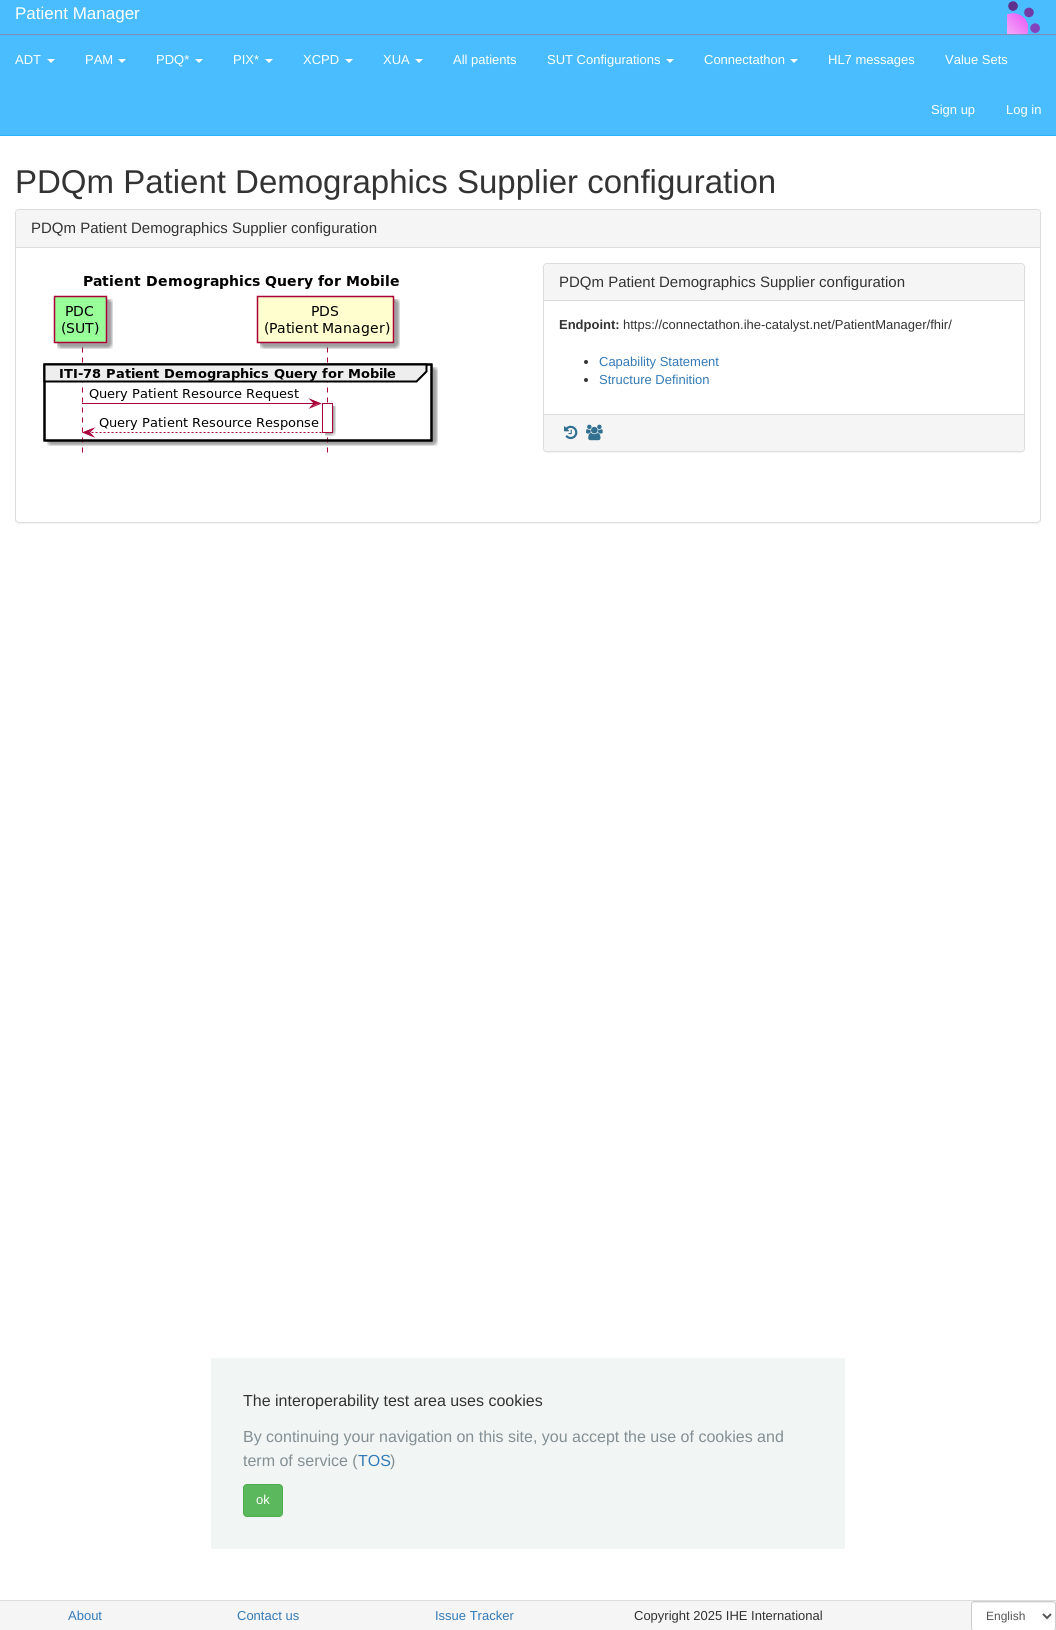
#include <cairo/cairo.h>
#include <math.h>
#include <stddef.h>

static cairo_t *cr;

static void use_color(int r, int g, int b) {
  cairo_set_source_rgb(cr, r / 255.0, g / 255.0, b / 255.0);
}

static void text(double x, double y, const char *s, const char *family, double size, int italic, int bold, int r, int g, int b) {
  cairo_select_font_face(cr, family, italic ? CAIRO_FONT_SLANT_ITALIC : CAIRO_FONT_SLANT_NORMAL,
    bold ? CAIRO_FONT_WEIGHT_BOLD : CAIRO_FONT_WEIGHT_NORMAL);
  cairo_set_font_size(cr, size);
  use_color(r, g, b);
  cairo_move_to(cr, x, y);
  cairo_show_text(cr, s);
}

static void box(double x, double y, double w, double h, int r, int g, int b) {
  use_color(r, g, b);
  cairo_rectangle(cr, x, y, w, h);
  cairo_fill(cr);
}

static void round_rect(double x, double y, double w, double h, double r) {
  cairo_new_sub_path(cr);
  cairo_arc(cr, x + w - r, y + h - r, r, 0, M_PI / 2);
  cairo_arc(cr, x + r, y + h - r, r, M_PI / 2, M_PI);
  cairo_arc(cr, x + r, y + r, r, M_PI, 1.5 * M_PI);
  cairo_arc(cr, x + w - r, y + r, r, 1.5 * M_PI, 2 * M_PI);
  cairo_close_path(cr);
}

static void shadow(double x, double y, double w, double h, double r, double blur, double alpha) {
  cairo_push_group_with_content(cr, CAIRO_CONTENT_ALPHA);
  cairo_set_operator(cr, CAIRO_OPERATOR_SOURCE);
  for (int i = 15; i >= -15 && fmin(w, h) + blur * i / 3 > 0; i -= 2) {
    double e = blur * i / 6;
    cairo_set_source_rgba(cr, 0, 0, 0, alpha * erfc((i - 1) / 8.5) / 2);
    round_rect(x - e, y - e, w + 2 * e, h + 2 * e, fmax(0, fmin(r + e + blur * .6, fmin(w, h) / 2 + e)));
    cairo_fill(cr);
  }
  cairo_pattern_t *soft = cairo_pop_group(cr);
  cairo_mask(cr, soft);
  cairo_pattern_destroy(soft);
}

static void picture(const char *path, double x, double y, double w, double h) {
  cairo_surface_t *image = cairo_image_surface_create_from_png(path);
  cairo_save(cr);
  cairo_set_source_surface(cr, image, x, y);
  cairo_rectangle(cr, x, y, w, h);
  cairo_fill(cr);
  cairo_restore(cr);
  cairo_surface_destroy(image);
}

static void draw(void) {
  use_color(255, 255, 255);
  cairo_paint(cr);
  box(0, 0, 1056, 135, 73, 189, 255);
  box(0, 135, 1056, 1, 40, 177, 255);
  box(0, 34, 1056, 1, 124, 141, 197);
  picture("img_01.png", 1007, 1, 33, 33);
  use_color(255, 255, 255);
  cairo_new_path(cr);
  cairo_move_to(cr, 47, 59);
  cairo_line_to(cr, 55, 59);
  cairo_line_to(cr, 51, 63);
  cairo_close_path(cr);
  cairo_fill(cr);
  cairo_new_path(cr);
  cairo_move_to(cr, 118, 59);
  cairo_line_to(cr, 126, 59);
  cairo_line_to(cr, 122, 63);
  cairo_close_path(cr);
  cairo_fill(cr);
  cairo_new_path(cr);
  cairo_move_to(cr, 195, 59);
  cairo_line_to(cr, 203, 59);
  cairo_line_to(cr, 199, 63);
  cairo_close_path(cr);
  cairo_fill(cr);
  cairo_new_path(cr);
  cairo_move_to(cr, 265, 59);
  cairo_line_to(cr, 273, 59);
  cairo_line_to(cr, 269, 63);
  cairo_close_path(cr);
  cairo_fill(cr);
  cairo_new_path(cr);
  cairo_move_to(cr, 345, 59);
  cairo_line_to(cr, 353, 59);
  cairo_line_to(cr, 349, 63);
  cairo_close_path(cr);
  cairo_fill(cr);
  cairo_new_path(cr);
  cairo_move_to(cr, 415, 59);
  cairo_line_to(cr, 423, 59);
  cairo_line_to(cr, 419, 63);
  cairo_close_path(cr);
  cairo_fill(cr);
  cairo_new_path(cr);
  cairo_move_to(cr, 666, 59);
  cairo_line_to(cr, 674, 59);
  cairo_line_to(cr, 670, 63);
  cairo_close_path(cr);
  cairo_fill(cr);
  cairo_new_path(cr);
  cairo_move_to(cr, 790, 59);
  cairo_line_to(cr, 798, 59);
  cairo_line_to(cr, 794, 63);
  cairo_close_path(cr);
  cairo_fill(cr);
  use_color(0, 0, 0);
  shadow(15, 210, 1026, 314, 4, 0.5, 0.05);
  use_color(255, 255, 255);
  round_rect(15.5, 209.5, 1025, 313, 3.5);
  cairo_fill_preserve(cr);
  use_color(221, 221, 221);
  cairo_set_line_width(cr, 1);
  cairo_stroke(cr);
  use_color(245, 245, 245);
  cairo_new_path(cr);
  cairo_move_to(cr, 19, 210);
  cairo_line_to(cr, 1037, 210);
  cairo_curve_to(cr, 1038.5, 210, 1040, 211.5, 1040, 213);
  cairo_line_to(cr, 1040, 248);
  cairo_line_to(cr, 16, 248);
  cairo_line_to(cr, 16, 213);
  cairo_curve_to(cr, 16, 211.5, 17.5, 210, 19, 210);
  cairo_close_path(cr);
  cairo_fill(cr);
  box(16, 247, 1024, 1, 221, 221, 221);
  picture("img_02.png", 43, 275, 395, 178);
  use_color(0, 0, 0);
  shadow(543, 264, 482, 189, 4, 0.5, 0.05);
  use_color(255, 255, 255);
  round_rect(543.5, 263.5, 481, 188, 3.5);
  cairo_fill_preserve(cr);
  use_color(221, 221, 221);
  cairo_stroke(cr);
  use_color(245, 245, 245);
  cairo_new_path(cr);
  cairo_move_to(cr, 547, 264);
  cairo_line_to(cr, 1021, 264);
  cairo_curve_to(cr, 1022.5, 264, 1024, 265.5, 1024, 267);
  cairo_line_to(cr, 1024, 301);
  cairo_line_to(cr, 544, 301);
  cairo_line_to(cr, 544, 267);
  cairo_curve_to(cr, 544, 265.5, 545.5, 264, 547, 264);
  cairo_close_path(cr);
  cairo_fill(cr);
  box(544, 300, 480, 1, 221, 221, 221);
  use_color(51, 51, 51);
  cairo_arc(cr, 586, 362, 2, 0, 2 * M_PI);
  cairo_fill(cr);
  cairo_arc(cr, 586, 380, 2, 0, 2 * M_PI);
  cairo_fill(cr);
  use_color(245, 245, 245);
  cairo_new_path(cr);
  cairo_move_to(cr, 544, 414);
  cairo_line_to(cr, 1024, 414);
  cairo_line_to(cr, 1024, 448);
  cairo_curve_to(cr, 1024, 449.5, 1022.5, 451, 1021, 451);
  cairo_line_to(cr, 547, 451);
  cairo_curve_to(cr, 545.5, 451, 544, 449.5, 544, 448);
  cairo_close_path(cr);
  cairo_fill(cr);
  box(544, 414, 480, 1, 221, 221, 221);
  picture("img_03.png", 564, 425, 14, 15);
  picture("img_04.png", 586, 424, 17, 17);
  box(211, 1358, 634, 191, 241, 246, 244);
  use_color(92, 184, 92);
  round_rect(243.5, 1484.5, 39, 32, 3.5);
  cairo_fill_preserve(cr);
  use_color(76, 174, 76);
  cairo_stroke(cr);
  box(0, 1601, 1056, 29, 245, 245, 245);
  box(0, 1600, 1056, 1, 221, 221, 221);
  use_color(255, 255, 255);
  round_rect(971, 1601, 85, 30, 3);
  cairo_fill(cr);
  use_color(236, 236, 236);
  cairo_new_path(cr);
  cairo_move_to(cr, 974, 1603);
  cairo_line_to(cr, 1053, 1603);
  cairo_curve_to(cr, 1054, 1603, 1055, 1604, 1055, 1605);
  cairo_curve_to(cr, 1055, 1598, 1043, 1602, 1040, 1602);
  cairo_line_to(cr, 987, 1602);
  cairo_curve_to(cr, 984, 1602, 972, 1598, 972, 1605);
  cairo_curve_to(cr, 972, 1604, 973, 1603, 974, 1603);
  cairo_close_path(cr);
  cairo_fill(cr);
  round_rect(971.5, 1601.5, 84, 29, 2.5);
  use_color(204, 204, 204);
  cairo_stroke(cr);
  cairo_new_path(cr);
  cairo_move_to(cr, 1043, 1614);
  cairo_line_to(cr, 1047, 1618);
  cairo_line_to(cr, 1051, 1614);
  use_color(85, 85, 85);
  cairo_set_line_width(cr, 2);
  cairo_stroke(cr);
  text(15, 19, "Patient Manager", "Liberation Sans", 17, 0, 0, 255, 255, 255);
  text(15, 64, "ADT", "Liberation Sans", 13, 0, 0, 255, 255, 255);
  text(85, 64, "PAM", "Liberation Sans", 13, 0, 0, 255, 255, 255);
  text(156, 64, "PDQ*", "Liberation Sans", 13, 0, 0, 255, 255, 255);
  text(233, 64, "PIX*", "Liberation Sans", 13, 0, 0, 255, 255, 255);
  text(303, 64, "XCPD", "Liberation Sans", 13, 0, 0, 255, 255, 255);
  text(383, 64, "XUA", "Liberation Sans", 13, 0, 0, 255, 255, 255);
  text(453, 64, "All patients", "Liberation Sans", 13, 0, 0, 255, 255, 255);
  text(547, 64, "SUT Configurations", "Liberation Sans", 13, 0, 0, 255, 255, 255);
  text(704, 64, "Connectathon", "Liberation Sans", 13, 0, 0, 255, 255, 255);
  text(828, 64, "HL7 messages", "Liberation Sans", 13, 0, 0, 255, 255, 255);
  text(945, 64, "Value Sets", "Liberation Sans", 13, 0, 0, 255, 255, 255);
  text(931, 114, "Sign up", "Liberation Sans", 13, 0, 0, 255, 255, 255);
  text(1006, 114, "Log in", "Liberation Sans", 13, 0, 0, 255, 255, 255);
  text(15, 193, "PDQm Patient Demographics Supplier configuration", "Liberation Sans", 33, 0, 0, 51, 51, 51);
  text(31, 233, "PDQm Patient Demographics Supplier configuration", "Liberation Sans", 15, 0, 0, 51, 51, 51);
  text(559, 287, "PDQm Patient Demographics Supplier configuration", "Liberation Sans", 15, 0, 0, 51, 51, 51);
  text(559, 329, "Endpoint:", "Liberation Sans", 13, 0, 1, 51, 51, 51);
  text(623, 329, "https://connectathon.ihe-catalyst.net/PatientManager/fhir/", "Liberation Sans", 13, 0, 0, 51, 51, 51);
  text(599, 366, "Capability Statement", "Liberation Sans", 13, 0, 0, 51, 122, 183);
  text(599, 384, "Structure Definition", "Liberation Sans", 13, 0, 0, 51, 122, 183);
  text(243, 1406, "The interoperability test area uses cookies", "Liberation Sans", 16, 0, 0, 51, 51, 51);
  text(243, 1442, "By continuing your navigation on this site, you accept the use of cookies and", "Liberation Sans", 16, 0, 0, 131, 143, 147);
  text(243, 1466, "term of service (", "Liberation Sans", 16, 0, 0, 131, 143, 147);
  text(358, 1466, "TOS", "Liberation Sans", 16, 0, 0, 51, 122, 183);
  text(390, 1466, ")", "Liberation Sans", 16, 0, 0, 131, 143, 147);
  text(256, 1504, "ok", "Liberation Sans", 13, 0, 0, 255, 255, 255);
  text(68, 1620, "About", "Liberation Sans", 13, 0, 0, 51, 122, 183);
  text(237, 1620, "Contact us", "Liberation Sans", 13, 0, 0, 51, 122, 183);
  text(435, 1620, "Issue Tracker", "Liberation Sans", 13, 0, 0, 51, 122, 183);
  text(634, 1620, "Copyright 2025 IHE International", "Liberation Sans", 13, 0, 0, 51, 51, 51);
  text(986, 1620, "English", "Liberation Sans", 12, 0, 0, 85, 85, 85);
}

int main(void) {
  cairo_surface_t *surface = cairo_image_surface_create(CAIRO_FORMAT_RGB24, 1056, 1630);
  cr = cairo_create(surface);
  cairo_font_options_t *options = cairo_font_options_create();
  cairo_font_options_set_hint_metrics(options, CAIRO_HINT_METRICS_OFF);
  cairo_font_options_set_hint_style(options, CAIRO_HINT_STYLE_NONE);
  cairo_set_font_options(cr, options);
  cairo_set_miter_limit(cr, 4);
  draw();
  cairo_surface_write_to_png(surface, "out.png");
  cairo_font_options_destroy(options);
  cairo_destroy(cr);
  cairo_surface_destroy(surface);
  return 0;
}
